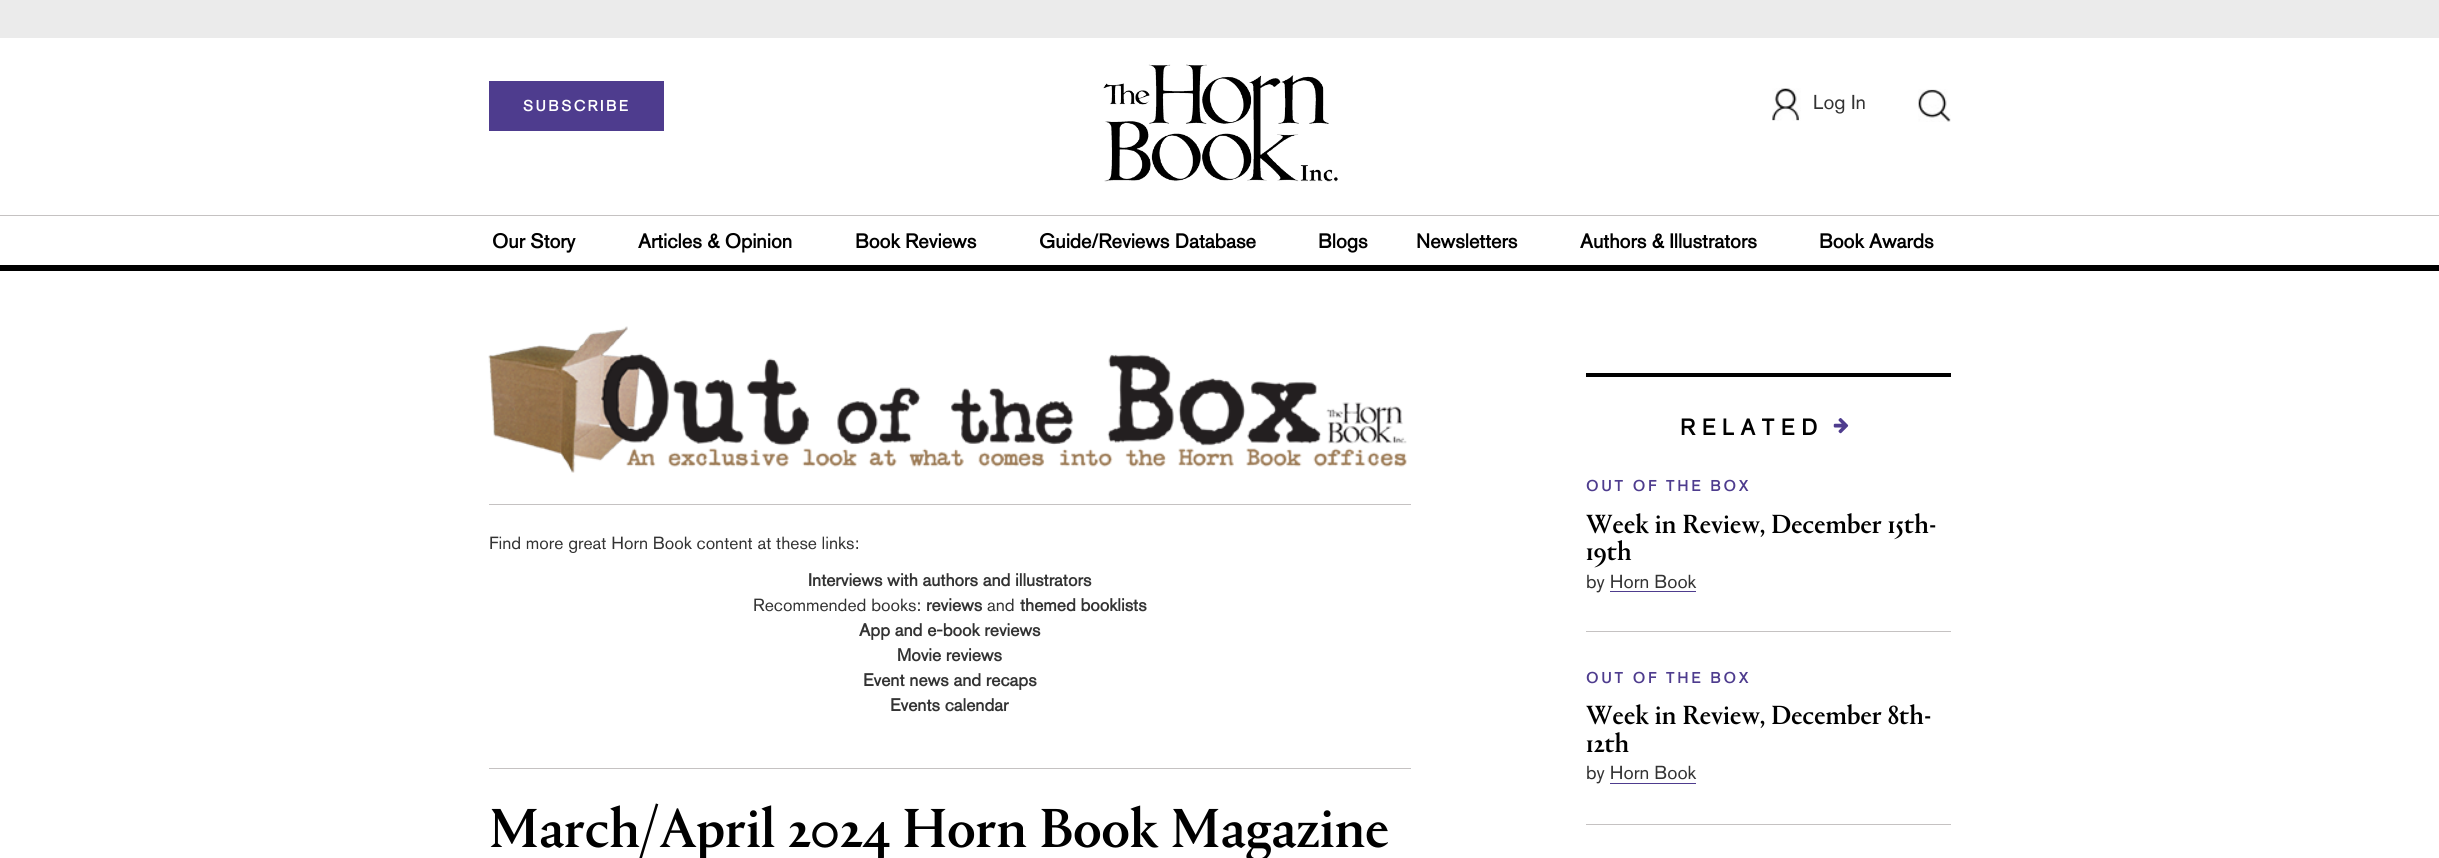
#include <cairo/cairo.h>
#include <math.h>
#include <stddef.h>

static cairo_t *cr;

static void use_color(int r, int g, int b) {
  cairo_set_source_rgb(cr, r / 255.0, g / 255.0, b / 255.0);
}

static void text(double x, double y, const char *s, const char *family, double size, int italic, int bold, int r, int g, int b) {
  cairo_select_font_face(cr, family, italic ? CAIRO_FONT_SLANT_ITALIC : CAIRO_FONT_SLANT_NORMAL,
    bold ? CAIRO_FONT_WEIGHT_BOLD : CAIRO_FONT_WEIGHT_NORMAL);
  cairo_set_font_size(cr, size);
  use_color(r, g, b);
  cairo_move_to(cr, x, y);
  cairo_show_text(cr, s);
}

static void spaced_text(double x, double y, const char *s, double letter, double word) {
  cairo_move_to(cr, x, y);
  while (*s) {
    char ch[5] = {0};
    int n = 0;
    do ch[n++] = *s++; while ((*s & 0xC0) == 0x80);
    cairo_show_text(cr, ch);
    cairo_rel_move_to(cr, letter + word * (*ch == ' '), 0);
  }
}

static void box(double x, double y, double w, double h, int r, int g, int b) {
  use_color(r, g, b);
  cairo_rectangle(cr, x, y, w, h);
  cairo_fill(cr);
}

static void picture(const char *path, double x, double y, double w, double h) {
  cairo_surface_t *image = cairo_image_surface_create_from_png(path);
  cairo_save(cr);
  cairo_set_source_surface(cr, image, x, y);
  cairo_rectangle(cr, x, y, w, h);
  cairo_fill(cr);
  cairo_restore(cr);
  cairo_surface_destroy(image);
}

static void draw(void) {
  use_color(255, 255, 255);
  cairo_paint(cr);
  box(0, 0, 2439, 38, 235, 235, 235);
  box(489, 81, 175, 50, 78, 60, 142);
  picture("img_01.png", 1103, 64, 235, 118);
  picture("img_02.png", 1772, 88, 29, 33);
  picture("img_03.png", 1918, 89, 33, 33);
  box(0, 215, 2439, 1, 197, 194, 194);
  box(0, 265, 2439, 6, 0, 0, 0);
  picture("img_04.png", 488, 326, 919, 147);
  box(489, 504, 922, 1, 197, 194, 194);
  box(489, 768, 922, 1, 197, 194, 194);
  box(1586, 373, 365, 4, 0, 0, 0);
  picture("img_05.png", 1833, 418, 16, 16);
  box(1586, 631, 365, 1, 197, 194, 194);
  box(1586, 824, 365, 1, 197, 194, 194);
  cairo_select_font_face(cr, "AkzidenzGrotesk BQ", CAIRO_FONT_SLANT_NORMAL, CAIRO_FONT_WEIGHT_BOLD);
  cairo_set_font_size(cr, 15);
  use_color(255, 255, 255);
  spaced_text(523, 111, "SUBSCRIBE", 2.5, 0);
  text(1813, 109, "Log In", "AkzidenzGrotesk BQ Medium", 20, 0, 0, 51, 51, 51);
  text(492, 248, "Our Story", "AkzidenzGrotesk BQ", 20, 0, 1, 0, 0, 0);
  text(638, 248, "Articles & Opinion", "AkzidenzGrotesk BQ", 20, 0, 1, 0, 0, 0);
  text(855, 248, "Book Reviews", "AkzidenzGrotesk BQ", 20, 0, 1, 0, 0, 0);
  text(1039, 248, "Guide/Reviews Database", "AkzidenzGrotesk BQ", 20, 0, 1, 0, 0, 0);
  text(1318, 248, "Blogs", "AkzidenzGrotesk BQ", 20, 0, 1, 0, 0, 0);
  text(1416, 248, "Newsletters", "AkzidenzGrotesk BQ", 20, 0, 1, 0, 0, 0);
  text(1580, 248, "Authors & Illustrators", "AkzidenzGrotesk BQ", 20, 0, 1, 0, 0, 0);
  text(1819, 248, "Book Awards", "AkzidenzGrotesk BQ", 20, 0, 1, 0, 0, 0);
  text(489, 549, "Find more great Horn Book content at these links:", "AkzidenzGrotesk BQ Medium", 17.5, 0, 0, 51, 51, 51);
  text(808, 586, "Interviews with authors and illustrators", "AkzidenzGrotesk BQ", 17.5, 0, 1, 51, 51, 51);
  text(753, 611, "Recommended books:", "AkzidenzGrotesk BQ Medium", 17.5, 0, 0, 51, 51, 51);
  text(926, 611, "reviews", "AkzidenzGrotesk BQ", 17.5, 0, 1, 51, 51, 51);
  text(987, 611, "and", "AkzidenzGrotesk BQ Medium", 17.5, 0, 0, 51, 51, 51);
  text(1020, 611, "themed booklists", "AkzidenzGrotesk BQ", 17.5, 0, 1, 51, 51, 51);
  text(859, 636, "App and e-book reviews", "AkzidenzGrotesk BQ", 17.5, 0, 1, 51, 51, 51);
  text(897, 661, "Movie reviews", "AkzidenzGrotesk BQ", 17.5, 0, 1, 51, 51, 51);
  text(863, 686, "Event news and recaps", "AkzidenzGrotesk BQ", 17.5, 0, 1, 51, 51, 51);
  text(890, 711, "Events calendar", "AkzidenzGrotesk BQ", 17.5, 0, 1, 51, 51, 51);
  text(489, 847, "March/April 2024 Horn Book Magazine", "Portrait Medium", 57.5, 0, 0, 0, 0, 0);
  cairo_select_font_face(cr, "AkzidenzGrotesk BQ", CAIRO_FONT_SLANT_NORMAL, CAIRO_FONT_WEIGHT_BOLD);
  cairo_set_font_size(cr, 22.5);
  spaced_text(1680, 435, "RELATED", 6.75, 0);
  cairo_set_font_size(cr, 15);
  use_color(78, 60, 142);
  spaced_text(1586, 491, "OUT OF THE BOX", 3, 0);
  text(1586, 533, "Week in Review, December 15th-", "Portrait Medium", 27.5, 0, 0, 0, 0, 0);
  text(1586, 560, "19th", "Portrait Medium", 27.5, 0, 0, 0, 0, 0);
  text(1586, 588, "by Horn Book", "AkzidenzGrotesk BQ Medium", 18.75, 0, 0, 51, 51, 51);
  box(1610, 591, 86, 1, 78, 60, 142);
  cairo_select_font_face(cr, "AkzidenzGrotesk BQ", CAIRO_FONT_SLANT_NORMAL, CAIRO_FONT_WEIGHT_BOLD);
  cairo_set_font_size(cr, 15);
  spaced_text(1586, 683, "OUT OF THE BOX", 3, 0);
  text(1586, 724, "Week in Review, December 8th-", "Portrait Medium", 27.5, 0, 0, 0, 0, 0);
  text(1586, 752, "12th", "Portrait Medium", 27.5, 0, 0, 0, 0, 0);
  text(1586, 779, "by Horn Book", "AkzidenzGrotesk BQ Medium", 18.75, 0, 0, 51, 51, 51);
  box(1610, 783, 86, 1, 78, 60, 142);
}

int main(void) {
  cairo_surface_t *surface = cairo_image_surface_create(CAIRO_FORMAT_RGB24, 2439, 858);
  cr = cairo_create(surface);
  cairo_font_options_t *options = cairo_font_options_create();
  cairo_font_options_set_hint_metrics(options, CAIRO_HINT_METRICS_OFF);
  cairo_font_options_set_hint_style(options, CAIRO_HINT_STYLE_NONE);
  cairo_set_font_options(cr, options);
  cairo_set_miter_limit(cr, 4);
  draw();
  cairo_surface_write_to_png(surface, "out.png");
  cairo_font_options_destroy(options);
  cairo_destroy(cr);
  cairo_surface_destroy(surface);
  return 0;
}
